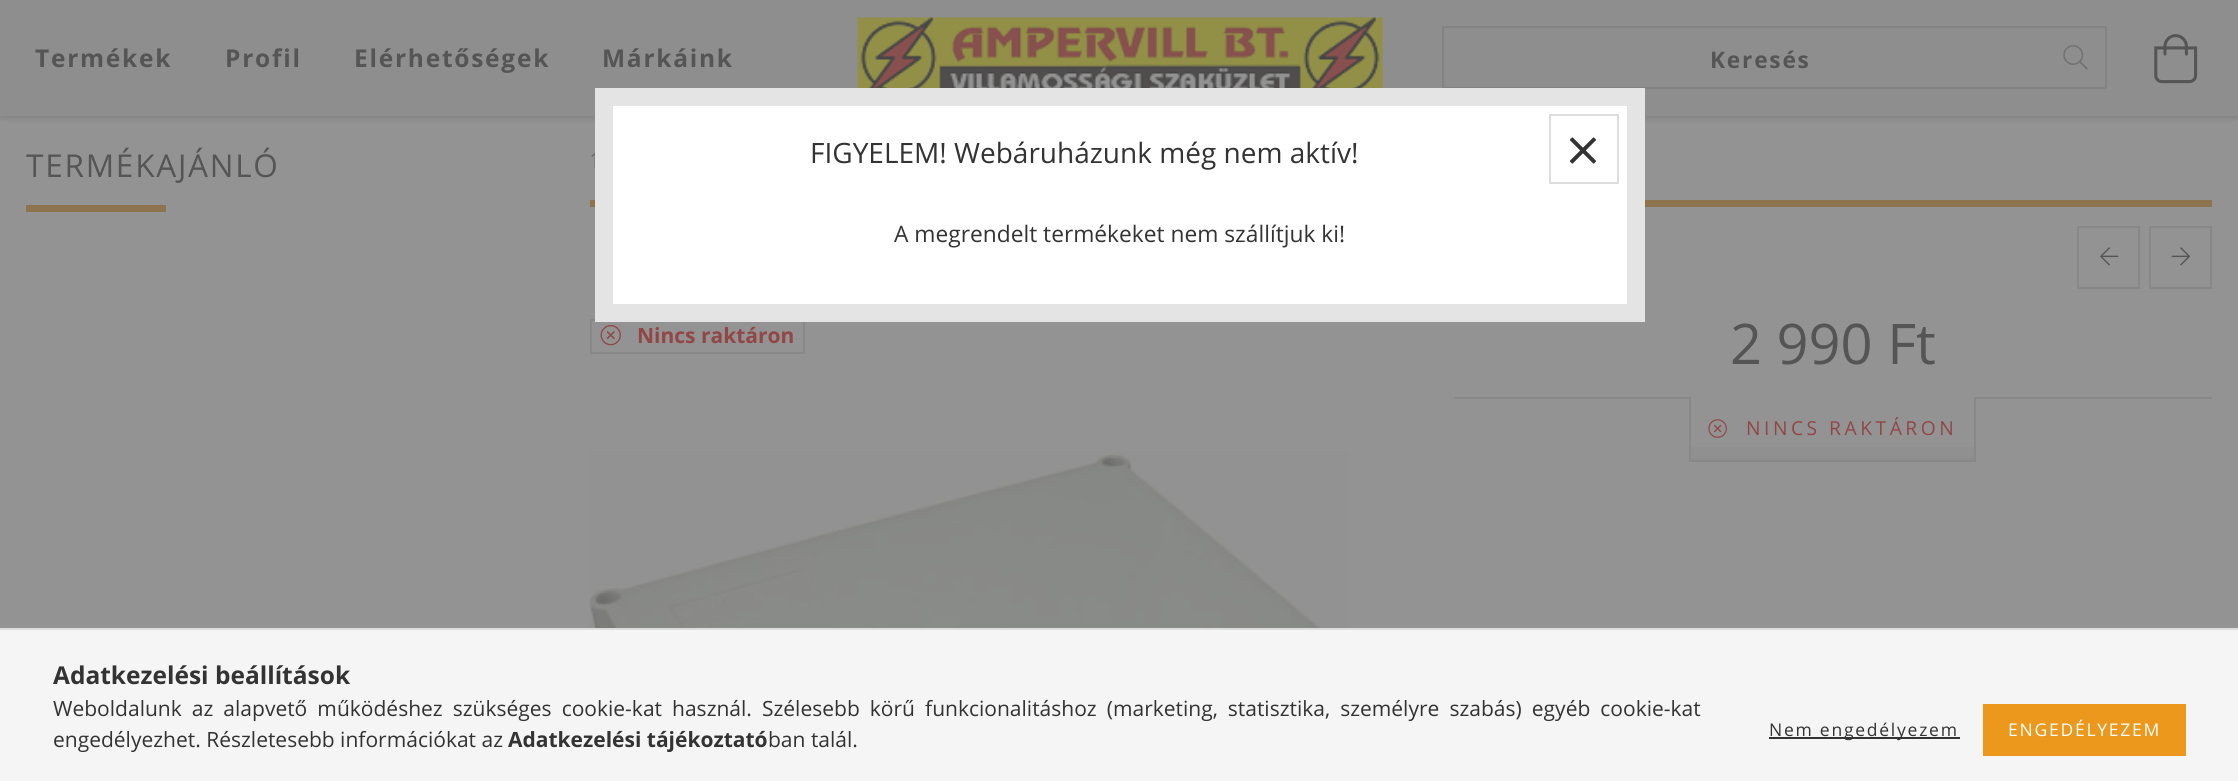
#include <cairo/cairo.h>
#include <math.h>
#include <stddef.h>

static cairo_t *cr;

static void use_color(int r, int g, int b) {
  cairo_set_source_rgb(cr, r / 255.0, g / 255.0, b / 255.0);
}

static void text(double x, double y, const char *s, const char *family, double size, int italic, int bold, int r, int g, int b) {
  cairo_select_font_face(cr, family, italic ? CAIRO_FONT_SLANT_ITALIC : CAIRO_FONT_SLANT_NORMAL,
    bold ? CAIRO_FONT_WEIGHT_BOLD : CAIRO_FONT_WEIGHT_NORMAL);
  cairo_set_font_size(cr, size);
  use_color(r, g, b);
  cairo_move_to(cr, x, y);
  cairo_show_text(cr, s);
}

static void spaced_text(double x, double y, const char *s, double letter, double word) {
  cairo_move_to(cr, x, y);
  while (*s) {
    char ch[5] = {0};
    int n = 0;
    do ch[n++] = *s++; while ((*s & 0xC0) == 0x80);
    cairo_show_text(cr, ch);
    cairo_rel_move_to(cr, letter + word * (*ch == ' '), 0);
  }
}

static void box(double x, double y, double w, double h, int r, int g, int b) {
  use_color(r, g, b);
  cairo_rectangle(cr, x, y, w, h);
  cairo_fill(cr);
}

static void round_rect(double x, double y, double w, double h, double r) {
  cairo_new_sub_path(cr);
  cairo_arc(cr, x + w - r, y + h - r, r, 0, M_PI / 2);
  cairo_arc(cr, x + r, y + h - r, r, M_PI / 2, M_PI);
  cairo_arc(cr, x + r, y + r, r, M_PI, 1.5 * M_PI);
  cairo_arc(cr, x + w - r, y + r, r, 1.5 * M_PI, 2 * M_PI);
  cairo_close_path(cr);
}

static void shadow(double x, double y, double w, double h, double r, double blur, double alpha) {
  cairo_push_group_with_content(cr, CAIRO_CONTENT_ALPHA);
  cairo_set_operator(cr, CAIRO_OPERATOR_SOURCE);
  for (int i = 15; i >= -15 && fmin(w, h) + blur * i / 3 > 0; i -= 2) {
    double e = blur * i / 6;
    cairo_set_source_rgba(cr, 0, 0, 0, alpha * erfc((i - 1) / 8.5) / 2);
    round_rect(x - e, y - e, w + 2 * e, h + 2 * e, fmax(0, fmin(r + e + blur * .6, fmin(w, h) / 2 + e)));
    cairo_fill(cr);
  }
  cairo_pattern_t *soft = cairo_pop_group(cr);
  cairo_mask(cr, soft);
  cairo_pattern_destroy(soft);
}

static void picture(const char *path, double x, double y, double w, double h) {
  cairo_surface_t *image = cairo_image_surface_create_from_png(path);
  cairo_save(cr);
  cairo_set_source_surface(cr, image, x, y);
  cairo_rectangle(cr, x, y, w, h);
  cairo_fill(cr);
  cairo_restore(cr);
  cairo_surface_destroy(image);
}

static void draw(void) {
  cairo_pattern_t *gradient;
  use_color(147, 147, 147);
  cairo_paint(cr);
  use_color(70, 70, 70);
  shadow(0, 4, 2238, 115, 0, 2.5, 0.2);
  box(0, 0, 2238, 116, 142, 142, 142);
  picture("img_01.png", 857, 17, 526, 71);
  cairo_rectangle(cr, 1443, 27, 663, 61);
  use_color(131, 131, 131);
  cairo_stroke(cr);
  picture("img_02.png", 2063, 45, 25, 25);
  picture("img_03.png", 2154, 34, 44, 50);
  box(26, 205, 140, 7, 141, 116, 78);
  picture("img_04.png", 591, 152, 4, 16);
  box(590, 200, 1622, 7, 141, 116, 78);
  cairo_rectangle(cr, 2078, 227, 61, 61);
  use_color(136, 136, 136);
  cairo_stroke(cr);
  picture("img_05.png", 2100, 247, 19, 19);
  cairo_rectangle(cr, 2150, 227, 61, 61);
  cairo_stroke(cr);
  picture("img_06.png", 2171, 247, 20, 19);
  cairo_rectangle(cr, 591, 320, 213, 33);
  cairo_stroke(cr);
  picture("img_07.png", 600, 325, 21, 21);
  picture("img_08.png", 590, 451, 760, 177);
  box(1454, 397, 758, 2, 136, 136, 136);
  gradient = cairo_pattern_create_linear(1832, 460, 1832, 397);
  cairo_pattern_add_color_stop_rgba(gradient, 0, 0.557, 0.557, 0.557, 1);
  cairo_pattern_add_color_stop_rgba(gradient, 0.42, 0.557, 0.557, 0.557, 0);
  cairo_pattern_add_color_stop_rgba(gradient, 1, 0.576, 0.576, 0.576, 0);
  cairo_set_source(cr, gradient);
  cairo_pattern_destroy(gradient);
  cairo_rectangle(cr, 1691, 447, 283, 13);
  cairo_fill(cr);
  box(1974, 397, 2, 65, 136, 136, 136);
  box(1689, 460, 287, 2, 136, 136, 136);
  box(1689, 397, 2, 65, 136, 136, 136);
  box(1691, 397, 283, 2, 147, 147, 147);
  picture("img_09.png", 1708, 419, 19, 19);
  use_color(255, 255, 255);
  cairo_rectangle(cr, 604, 97, 1032, 216);
  cairo_fill_preserve(cr);
  use_color(228, 228, 228);
  cairo_set_line_width(cr, 18);
  cairo_stroke(cr);
  cairo_rectangle(cr, 1550, 115, 68, 68);
  use_color(221, 221, 221);
  cairo_set_line_width(cr, 2);
  cairo_stroke(cr);
  picture("img_10.png", 1569, 137, 28, 27);
  box(0, 630, 2238, 151, 245, 245, 245);
  box(0, 628, 2238, 2, 221, 221, 221);
  box(1769, 737, 191, 2, 51, 51, 51);
  box(1983, 704, 203, 52, 235, 152, 28);
  cairo_select_font_face(cr, "Open Sans", CAIRO_FONT_SLANT_NORMAL, CAIRO_FONT_WEIGHT_BOLD);
  cairo_set_font_size(cr, 24.5);
  use_color(85, 85, 85);
  spaced_text(35, 67, "Termékek", 1.75, 0);
  spaced_text(225, 67, "Profil", 1.75, 0);
  spaced_text(354, 67, "Elérhetőségek", 1.75, 0);
  spaced_text(602, 67, "Márkáink", 1.75, 0);
  cairo_set_font_size(cr, 22.75);
  spaced_text(1710, 68, "Keresés", 1.75, 0);
  cairo_select_font_face(cr, "Open Sans", CAIRO_FONT_SLANT_NORMAL, CAIRO_FONT_WEIGHT_NORMAL);
  cairo_set_font_size(cr, 31.5);
  spaced_text(26, 177, "TERMÉKAJÁNLÓ", 1.75, 0);
  text(637, 343, "Nincs raktáron", "Open Sans", 21, 0, 1, 146, 70, 70);
  text(1730, 364, "2 990 Ft", "Open Sans", 56, 0, 0, 85, 85, 85);
  cairo_set_font_size(cr, 19.25);
  use_color(146, 70, 70);
  spaced_text(1746, 435, "NINCS RAKTÁRON", 3.5, 0);
  text(810, 163, "FIGYELEM! Webáruházunk még nem aktív!", "Open Sans", 28, 0, 0, 51, 51, 51);
  text(894, 242, "A megrendelt termékeket nem szállítjuk ki!", "Open Sans", 22.75, 0, 0, 51, 51, 51);
  text(53, 684, "Adatkezelési beállítások", "Open Sans", 24.5, 0, 1, 51, 51, 51);
  cairo_select_font_face(cr, "Open Sans", CAIRO_FONT_SLANT_NORMAL, CAIRO_FONT_WEIGHT_NORMAL);
  cairo_set_font_size(cr, 21);
  spaced_text(53, 716, "Weboldalunk az alapvető működéshez szükséges cookie-kat használ. Szélesebb körű funkcionalitáshoz (marketing, statisztika, személyre szabás) egyéb cookie-kat", 0, 4.6);
  text(53, 747, "engedélyezhet. Részletesebb információkat az", "Open Sans", 21, 0, 0, 51, 51, 51);
  text(508, 747, "Adatkezelési tájékoztató", "Open Sans", 21, 0, 1, 51, 51, 51);
  text(768, 747, "ban talál.", "Open Sans", 21, 0, 0, 51, 51, 51);
  cairo_set_font_size(cr, 17.5);
  spaced_text(1769, 736, "Nem engedélyezem", 1.75, 0);
  use_color(255, 255, 255);
  spaced_text(2008, 736, "ENGEDÉLYEZEM", 1.75, 0);
}

int main(void) {
  cairo_surface_t *surface = cairo_image_surface_create(CAIRO_FORMAT_RGB24, 2238, 781);
  cr = cairo_create(surface);
  cairo_font_options_t *options = cairo_font_options_create();
  cairo_font_options_set_hint_metrics(options, CAIRO_HINT_METRICS_OFF);
  cairo_font_options_set_hint_style(options, CAIRO_HINT_STYLE_NONE);
  cairo_set_font_options(cr, options);
  cairo_set_miter_limit(cr, 4);
  draw();
  cairo_surface_write_to_png(surface, "out.png");
  cairo_font_options_destroy(options);
  cairo_destroy(cr);
  cairo_surface_destroy(surface);
  return 0;
}
